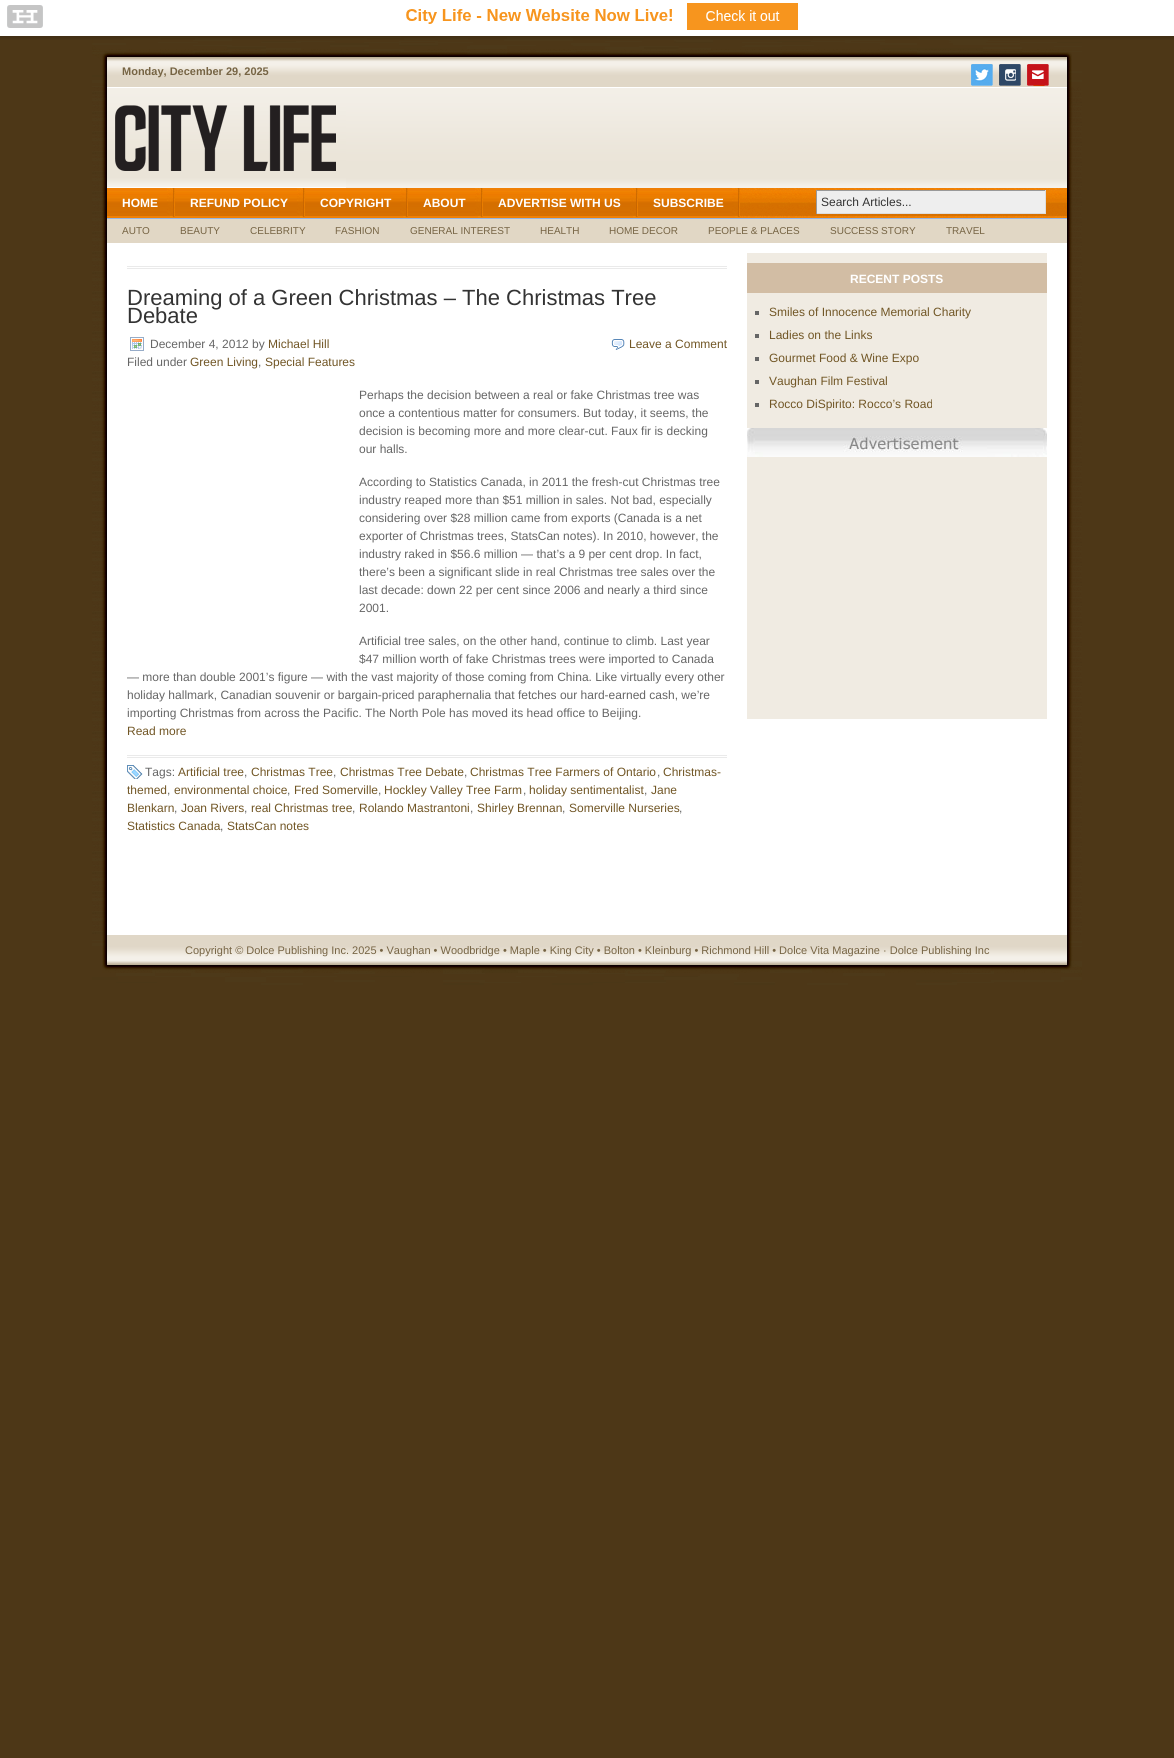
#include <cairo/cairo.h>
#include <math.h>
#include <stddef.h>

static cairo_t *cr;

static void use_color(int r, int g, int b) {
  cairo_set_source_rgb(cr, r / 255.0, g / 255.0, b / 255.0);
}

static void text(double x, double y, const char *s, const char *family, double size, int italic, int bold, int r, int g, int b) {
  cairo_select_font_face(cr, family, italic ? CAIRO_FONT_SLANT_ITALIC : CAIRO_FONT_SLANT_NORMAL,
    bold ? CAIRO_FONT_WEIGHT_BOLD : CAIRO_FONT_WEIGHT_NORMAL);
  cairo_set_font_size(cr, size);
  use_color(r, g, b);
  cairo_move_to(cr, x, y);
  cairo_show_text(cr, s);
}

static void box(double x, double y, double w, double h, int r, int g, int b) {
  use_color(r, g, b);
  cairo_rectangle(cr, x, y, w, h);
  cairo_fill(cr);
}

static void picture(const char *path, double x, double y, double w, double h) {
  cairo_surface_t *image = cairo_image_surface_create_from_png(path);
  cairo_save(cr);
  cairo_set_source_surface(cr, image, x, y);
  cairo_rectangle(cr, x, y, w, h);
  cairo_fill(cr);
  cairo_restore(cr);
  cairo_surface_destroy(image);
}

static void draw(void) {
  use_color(77, 55, 23);
  cairo_paint(cr);
  picture("img_03.png", 92, 37, 990, 50);
  picture("img_01.png", 0, 0, 1174, 40);
  picture("img_02.png", 92, 87, 990, 848);
  picture("img_04.png", 971, 64, 22, 22);
  picture("img_05.png", 999, 64, 22, 22);
  picture("img_06.png", 1027, 64, 22, 22);
  picture("img_07.png", 107, 88, 960, 100);
  picture("img_08.png", 107, 105, 239, 83);
  picture("img_09.png", 740, 188, 327, 30);
  box(107, 218, 960, 1, 152, 180, 224);
  picture("img_10.png", 107, 188, 68, 30);
  picture("img_11.png", 175, 188, 130, 30);
  picture("img_12.png", 305, 188, 103, 30);
  picture("img_13.png", 408, 188, 75, 30);
  picture("img_14.png", 483, 188, 155, 30);
  picture("img_15.png", 638, 188, 102, 30);
  box(817, 191, 228, 22, 238, 238, 238);
  box(816, 190, 230, 1, 153, 153, 153);
  box(1045, 190, 1, 24, 221, 221, 221);
  box(816, 213, 230, 1, 221, 221, 221);
  box(816, 190, 1, 24, 153, 153, 153);
  box(107, 219, 960, 24, 225, 215, 197);
  box(127, 266, 600, 1, 234, 234, 234);
  box(127, 268, 600, 1, 234, 234, 234);
  picture("img_16.png", 130, 337, 14, 14);
  picture("img_17.png", 611, 339, 14, 11);
  box(127, 755, 600, 1, 234, 234, 234);
  box(127, 757, 600, 1, 234, 234, 234);
  picture("img_18.png", 127, 765, 16, 14);
  box(747, 253, 300, 466, 240, 235, 226);
  box(747, 263, 300, 30, 210, 189, 164);
  box(755, 311, 4, 4, 102, 102, 102);
  box(755, 334, 4, 4, 102, 102, 102);
  box(755, 357, 4, 4, 102, 102, 102);
  box(755, 380, 4, 4, 102, 102, 102);
  box(755, 403, 4, 4, 102, 102, 102);
  picture("img_19.png", 747, 428, 300, 29);
  picture("img_20.png", 92, 935, 990, 50);
  text(122, 75, "Monday, December 29, 2025", "Liberation Sans", 11, 0, 1, 118, 100, 68);
  text(122, 207, "HOME", "Liberation Sans", 12, 0, 1, 255, 255, 255);
  text(190, 207, "REFUND POLICY", "Liberation Sans", 12, 0, 1, 255, 255, 255);
  text(320, 207, "COPYRIGHT", "Liberation Sans", 12, 0, 1, 255, 255, 255);
  text(423, 207, "ABOUT", "Liberation Sans", 12, 0, 1, 255, 255, 255);
  text(498, 207, "ADVERTISE WITH US", "Liberation Sans", 12, 0, 1, 255, 255, 255);
  text(653, 207, "SUBSCRIBE", "Liberation Sans", 12, 0, 1, 255, 255, 255);
  text(821, 206, "Search Articles...", "Liberation Sans", 12, 0, 0, 51, 51, 51);
  text(122, 234, "AUTO", "Liberation Sans", 10, 0, 0, 118, 100, 68);
  text(180, 234, "BEAUTY", "Liberation Sans", 10, 0, 0, 118, 100, 68);
  text(250, 234, "CELEBRITY", "Liberation Sans", 10, 0, 0, 118, 100, 68);
  text(335, 234, "FASHION", "Liberation Sans", 10, 0, 0, 118, 100, 68);
  text(410, 234, "GENERAL INTEREST", "Liberation Sans", 10, 0, 0, 118, 100, 68);
  text(540, 234, "HEALTH", "Liberation Sans", 10, 0, 0, 118, 100, 68);
  text(609, 234, "HOME DECOR", "Liberation Sans", 10, 0, 0, 118, 100, 68);
  text(708, 234, "PEOPLE & PLACES", "Liberation Sans", 10, 0, 0, 118, 100, 68);
  text(830, 234, "SUCCESS STORY", "Liberation Sans", 10, 0, 0, 118, 100, 68);
  text(946, 234, "TRAVEL", "Liberation Sans", 10, 0, 0, 118, 100, 68);
  text(127, 305, "Dreaming of a Green Christmas – The Christmas Tree", "Liberation Sans", 22, 0, 0, 51, 51, 51);
  text(127, 323, "Debate", "Liberation Sans", 22, 0, 0, 51, 51, 51);
  text(150, 348, "December 4, 2012 by", "Liberation Sans", 12, 0, 0, 102, 102, 102);
  text(268, 348, "Michael Hill", "Liberation Sans", 12, 0, 0, 113, 86, 37);
  text(127, 366, "Filed under", "Liberation Sans", 12, 0, 0, 102, 102, 102);
  text(190, 366, "Green Living", "Liberation Sans", 12, 0, 0, 113, 86, 37);
  text(258, 366, ",", "Liberation Sans", 12, 0, 0, 102, 102, 102);
  text(265, 366, "Special Features", "Liberation Sans", 12, 0, 0, 113, 86, 37);
  text(629, 348, "Leave a Comment", "Liberation Sans", 12, 0, 0, 113, 86, 37);
  text(359, 399, "Perhaps the decision between a real or fake Christmas tree was", "Liberation Sans", 12, 0, 0, 102, 102, 102);
  text(359, 417, "once a contentious matter for consumers. But today, it seems, the", "Liberation Sans", 12, 0, 0, 102, 102, 102);
  text(359, 435, "decision is becoming more and more clear-cut. Faux fir is decking", "Liberation Sans", 12, 0, 0, 102, 102, 102);
  text(359, 453, "our halls.", "Liberation Sans", 12, 0, 0, 102, 102, 102);
  text(359, 486, "According to Statistics Canada, in 2011 the fresh-cut Christmas tree", "Liberation Sans", 12, 0, 0, 102, 102, 102);
  text(359, 504, "industry reaped more than $51 million in sales. Not bad, especially", "Liberation Sans", 12, 0, 0, 102, 102, 102);
  text(359, 522, "considering over $28 million came from exports (Canada is a net", "Liberation Sans", 12, 0, 0, 102, 102, 102);
  text(359, 540, "exporter of Christmas trees, StatsCan notes). In 2010, however, the", "Liberation Sans", 12, 0, 0, 102, 102, 102);
  text(359, 558, "industry raked in $56.6 million — that’s a 9 per cent drop. In fact,", "Liberation Sans", 12, 0, 0, 102, 102, 102);
  text(359, 576, "there’s been a significant slide in real Christmas tree sales over the", "Liberation Sans", 12, 0, 0, 102, 102, 102);
  text(359, 594, "last decade: down 22 per cent since 2006 and nearly a third since", "Liberation Sans", 12, 0, 0, 102, 102, 102);
  text(359, 612, "2001.", "Liberation Sans", 12, 0, 0, 102, 102, 102);
  text(359, 645, "Artificial tree sales, on the other hand, continue to climb. Last year", "Liberation Sans", 12, 0, 0, 102, 102, 102);
  text(359, 663, "$47 million worth of fake Christmas trees were imported to Canada", "Liberation Sans", 12, 0, 0, 102, 102, 102);
  text(127, 681, "— more than double 2001’s figure — with the vast majority of those coming from China. Like virtually every other", "Liberation Sans", 12, 0, 0, 102, 102, 102);
  text(127, 699, "holiday hallmark, Canadian souvenir or bargain-priced paraphernalia that fetches our hard-earned cash, we’re", "Liberation Sans", 12, 0, 0, 102, 102, 102);
  text(127, 717, "importing Christmas from across the Pacific. The North Pole has moved its head office to Beijing.", "Liberation Sans", 12, 0, 0, 102, 102, 102);
  text(127, 735, "Read more", "Liberation Sans", 12, 0, 0, 113, 86, 37);
  text(145, 776, "Tags:", "Liberation Sans", 12, 0, 0, 102, 102, 102);
  text(178, 776, "Artificial tree", "Liberation Sans", 12, 0, 0, 113, 86, 37);
  text(244, 776, ",", "Liberation Sans", 12, 0, 0, 102, 102, 102);
  text(251, 776, "Christmas Tree", "Liberation Sans", 12, 0, 0, 113, 86, 37);
  text(333, 776, ",", "Liberation Sans", 12, 0, 0, 102, 102, 102);
  text(340, 776, "Christmas Tree Debate", "Liberation Sans", 12, 0, 0, 113, 86, 37);
  text(464, 776, ",", "Liberation Sans", 12, 0, 0, 102, 102, 102);
  text(470, 776, "Christmas Tree Farmers of Ontario", "Liberation Sans", 12, 0, 0, 113, 86, 37);
  text(657, 776, ",", "Liberation Sans", 12, 0, 0, 102, 102, 102);
  text(663, 776, "Christmas-", "Liberation Sans", 12, 0, 0, 113, 86, 37);
  text(127, 794, "themed", "Liberation Sans", 12, 0, 0, 113, 86, 37);
  text(167, 794, ",", "Liberation Sans", 12, 0, 0, 102, 102, 102);
  text(174, 794, "environmental choice", "Liberation Sans", 12, 0, 0, 113, 86, 37);
  text(287, 794, ",", "Liberation Sans", 12, 0, 0, 102, 102, 102);
  text(294, 794, "Fred Somerville", "Liberation Sans", 12, 0, 0, 113, 86, 37);
  text(378, 794, ",", "Liberation Sans", 12, 0, 0, 102, 102, 102);
  text(384, 794, "Hockley Valley Tree Farm", "Liberation Sans", 12, 0, 0, 113, 86, 37);
  text(523, 794, ",", "Liberation Sans", 12, 0, 0, 102, 102, 102);
  text(529, 794, "holiday sentimentalist", "Liberation Sans", 12, 0, 0, 113, 86, 37);
  text(644, 794, ",", "Liberation Sans", 12, 0, 0, 102, 102, 102);
  text(651, 794, "Jane", "Liberation Sans", 12, 0, 0, 113, 86, 37);
  text(127, 812, "Blenkarn", "Liberation Sans", 12, 0, 0, 113, 86, 37);
  text(174, 812, ",", "Liberation Sans", 12, 0, 0, 102, 102, 102);
  text(181, 812, "Joan Rivers", "Liberation Sans", 12, 0, 0, 113, 86, 37);
  text(244, 812, ",", "Liberation Sans", 12, 0, 0, 102, 102, 102);
  text(251, 812, "real Christmas tree", "Liberation Sans", 12, 0, 0, 113, 86, 37);
  text(352, 812, ",", "Liberation Sans", 12, 0, 0, 102, 102, 102);
  text(359, 812, "Rolando Mastrantoni", "Liberation Sans", 12, 0, 0, 113, 86, 37);
  text(470, 812, ",", "Liberation Sans", 12, 0, 0, 102, 102, 102);
  text(477, 812, "Shirley Brennan", "Liberation Sans", 12, 0, 0, 113, 86, 37);
  text(562, 812, ",", "Liberation Sans", 12, 0, 0, 102, 102, 102);
  text(569, 812, "Somerville Nurseries", "Liberation Sans", 12, 0, 0, 113, 86, 37);
  text(679, 812, ",", "Liberation Sans", 12, 0, 0, 102, 102, 102);
  text(127, 830, "Statistics Canada", "Liberation Sans", 12, 0, 0, 113, 86, 37);
  text(220, 830, ",", "Liberation Sans", 12, 0, 0, 102, 102, 102);
  text(227, 830, "StatsCan notes", "Liberation Sans", 12, 0, 0, 113, 86, 37);
  text(850, 283, "RECENT POSTS", "Liberation Sans", 12, 0, 1, 255, 255, 255);
  text(769, 316, "Smiles of Innocence Memorial Charity", "Liberation Sans", 12, 0, 0, 113, 86, 37);
  text(769, 339, "Ladies on the Links", "Liberation Sans", 12, 0, 0, 113, 86, 37);
  text(769, 362, "Gourmet Food & Wine Expo", "Liberation Sans", 12, 0, 0, 113, 86, 37);
  text(769, 385, "Vaughan Film Festival", "Liberation Sans", 12, 0, 0, 113, 86, 37);
  text(769, 408, "Rocco DiSpirito: Rocco’s Road", "Liberation Sans", 12, 0, 0, 113, 86, 37);
  text(185, 954, "Copyright © Dolce Publishing Inc. 2025 • Vaughan • Woodbridge • Maple • King City • Bolton • Kleinburg • Richmond Hill • Dolce Vita Magazine · Dolce Publishing Inc", "Liberation Sans", 11, 0, 0, 118, 100, 68);
}

int main(void) {
  cairo_surface_t *surface = cairo_image_surface_create(CAIRO_FORMAT_RGB24, 1174, 1758);
  cr = cairo_create(surface);
  cairo_font_options_t *options = cairo_font_options_create();
  cairo_font_options_set_hint_metrics(options, CAIRO_HINT_METRICS_OFF);
  cairo_font_options_set_hint_style(options, CAIRO_HINT_STYLE_NONE);
  cairo_set_font_options(cr, options);
  cairo_set_miter_limit(cr, 4);
  draw();
  cairo_surface_write_to_png(surface, "out.png");
  cairo_font_options_destroy(options);
  cairo_destroy(cr);
  cairo_surface_destroy(surface);
  return 0;
}
